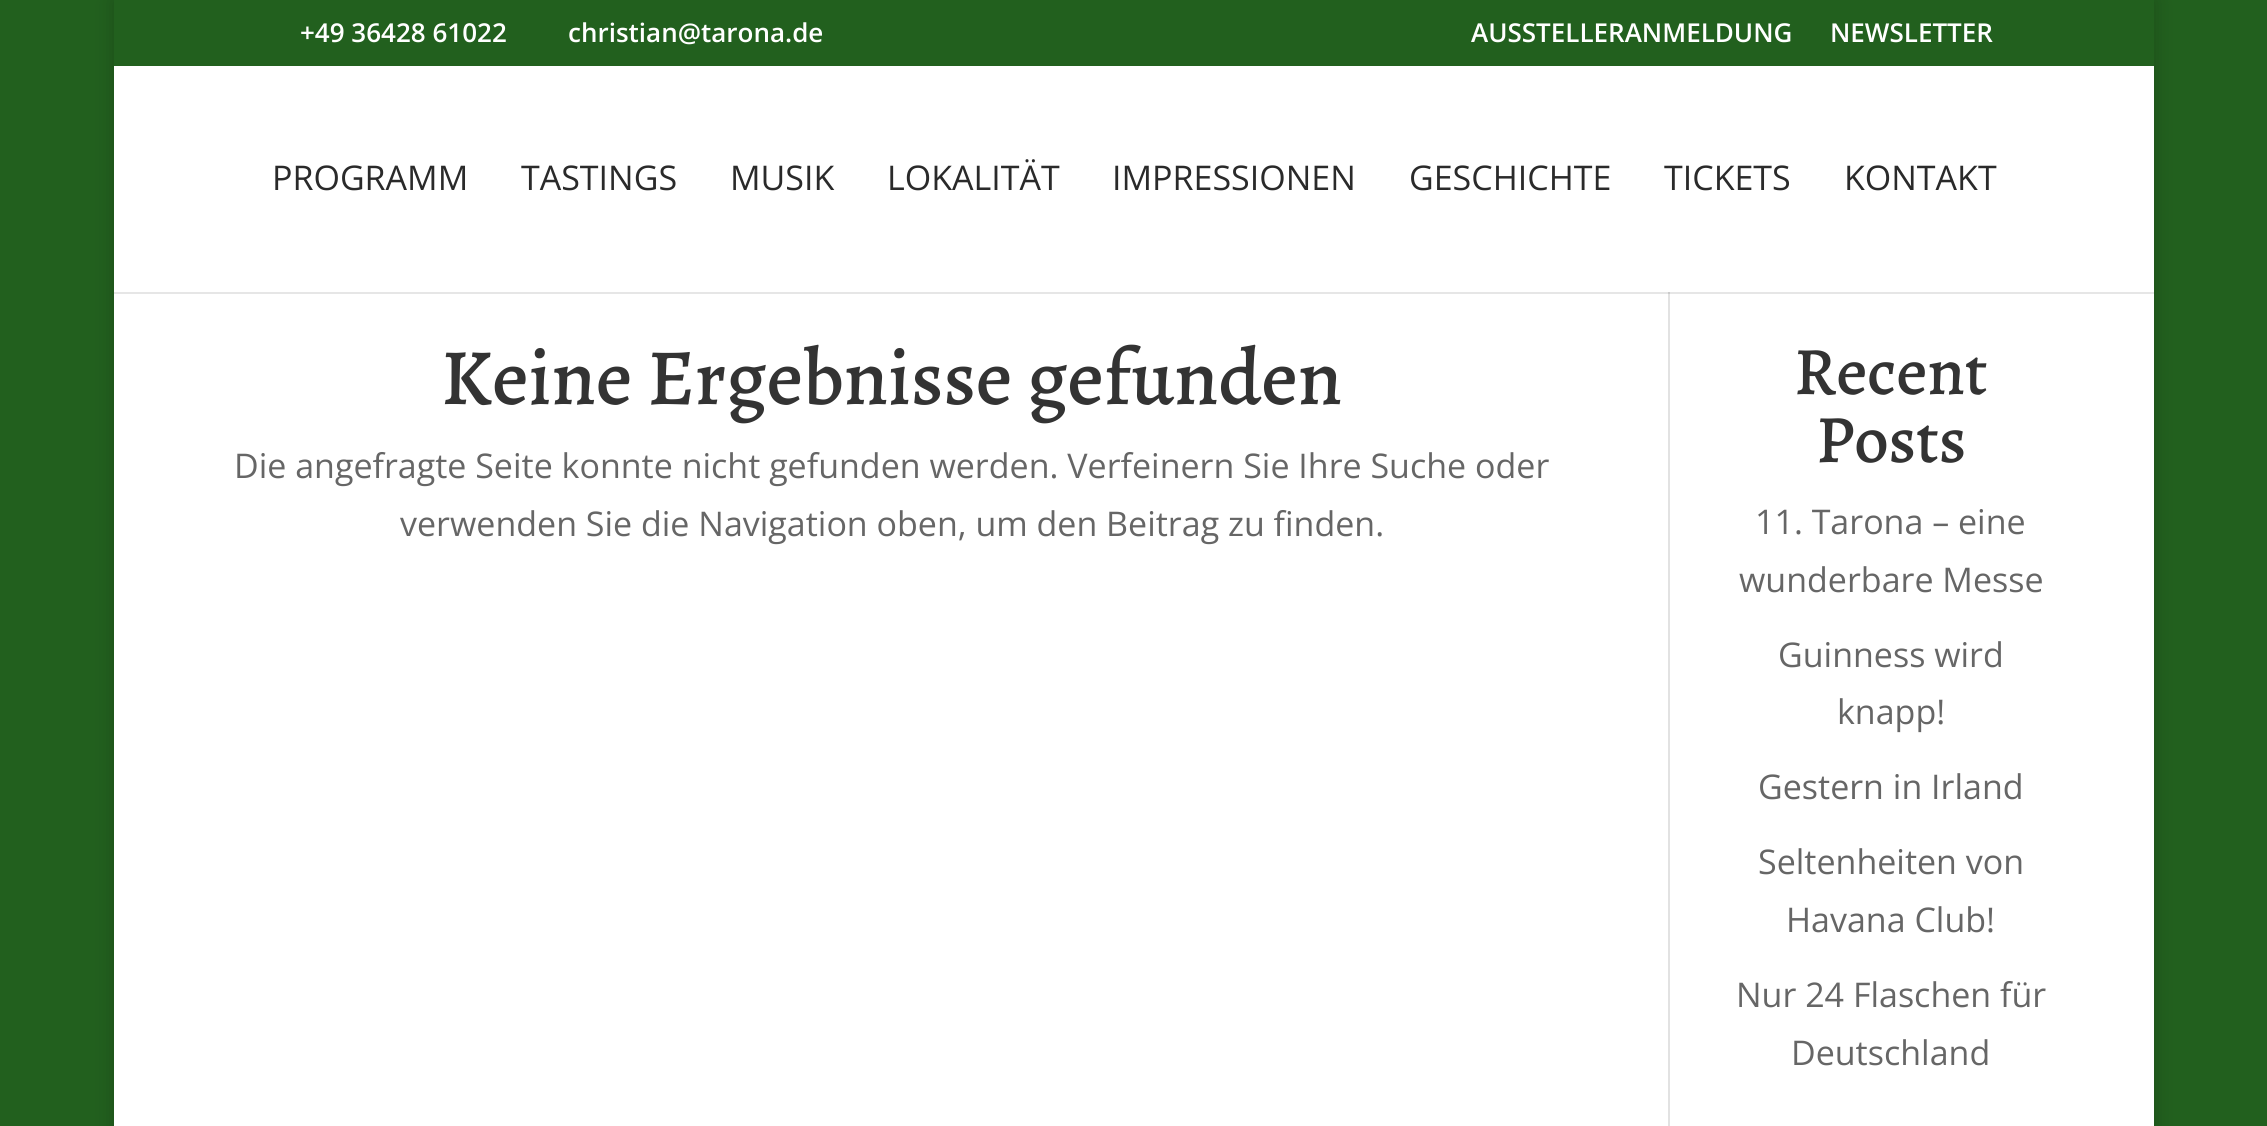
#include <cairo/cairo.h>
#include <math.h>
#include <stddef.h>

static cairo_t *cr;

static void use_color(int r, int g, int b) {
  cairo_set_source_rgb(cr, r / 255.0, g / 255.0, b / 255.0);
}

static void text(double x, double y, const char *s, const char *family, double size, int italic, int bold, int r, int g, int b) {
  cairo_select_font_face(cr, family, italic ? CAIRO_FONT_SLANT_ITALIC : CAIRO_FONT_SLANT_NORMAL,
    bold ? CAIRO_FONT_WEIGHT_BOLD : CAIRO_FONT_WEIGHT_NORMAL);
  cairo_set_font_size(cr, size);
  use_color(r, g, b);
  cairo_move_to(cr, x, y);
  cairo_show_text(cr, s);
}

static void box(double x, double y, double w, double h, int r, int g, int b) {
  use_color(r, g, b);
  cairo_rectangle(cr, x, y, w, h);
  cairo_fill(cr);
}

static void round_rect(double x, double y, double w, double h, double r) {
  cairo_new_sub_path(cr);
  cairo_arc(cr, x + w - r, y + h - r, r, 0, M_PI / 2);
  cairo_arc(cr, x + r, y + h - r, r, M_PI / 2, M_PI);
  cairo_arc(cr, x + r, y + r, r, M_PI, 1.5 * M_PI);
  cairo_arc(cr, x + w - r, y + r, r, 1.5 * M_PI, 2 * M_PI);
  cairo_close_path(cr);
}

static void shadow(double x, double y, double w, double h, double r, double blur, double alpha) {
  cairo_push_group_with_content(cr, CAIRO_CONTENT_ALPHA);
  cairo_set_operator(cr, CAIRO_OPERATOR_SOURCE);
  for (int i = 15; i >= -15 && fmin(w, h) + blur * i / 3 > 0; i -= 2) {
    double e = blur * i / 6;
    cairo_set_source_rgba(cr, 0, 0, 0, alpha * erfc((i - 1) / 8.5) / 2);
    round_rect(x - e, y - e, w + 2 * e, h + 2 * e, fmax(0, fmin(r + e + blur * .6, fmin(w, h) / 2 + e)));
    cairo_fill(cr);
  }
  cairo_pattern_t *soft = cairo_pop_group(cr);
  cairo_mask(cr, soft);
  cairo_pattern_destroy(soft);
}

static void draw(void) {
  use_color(34, 96, 30);
  cairo_paint(cr);
  use_color(0, 0, 0);
  shadow(114, 0, 2040, 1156, 0, 10, 0.2);
  box(114, 0, 2040, 66, 34, 96, 30);
  box(114, 66, 2040, 226, 255, 255, 255);
  box(114, 294, 2040, 832, 255, 255, 255);
  box(114, 292, 2040, 2, 230, 230, 230);
  box(1668, 294, 2, 832, 226, 226, 226);
  box(1668, 292, 2, 2, 203, 203, 203);
  text(300, 42, "+49 36428 61022", "Open Sans SemiBold", 26, 0, 0, 255, 255, 255);
  text(568, 42, "christian@tarona.de", "Open Sans SemiBold", 26, 0, 0, 255, 255, 255);
  text(1471, 42, "AUSSTELLERANMELDUNG", "Open Sans SemiBold", 26, 0, 0, 255, 255, 255);
  text(1830, 42, "NEWSLETTER", "Open Sans SemiBold", 26, 0, 0, 255, 255, 255);
  text(272, 190, "PROGRAMM", "Open Sans", 34, 0, 0, 42, 42, 42);
  text(521, 190, "TASTINGS", "Open Sans", 34, 0, 0, 42, 42, 42);
  text(730, 190, "MUSIK", "Open Sans", 34, 0, 0, 42, 42, 42);
  text(887, 190, "LOKALITÄT", "Open Sans", 34, 0, 0, 42, 42, 42);
  text(1112, 190, "IMPRESSIONEN", "Open Sans", 34, 0, 0, 42, 42, 42);
  text(1409, 190, "GESCHICHTE", "Open Sans", 34, 0, 0, 42, 42, 42);
  text(1664, 190, "TICKETS", "Open Sans", 34, 0, 0, 42, 42, 42);
  text(1844, 190, "KONTAKT", "Open Sans", 34, 0, 0, 42, 42, 42);
  text(441, 404, "Keine Ergebnisse gefunden", "Alegreya Medium", 80, 0, 0, 51, 51, 51);
  text(234, 478, "Die angefragte Seite konnte nicht gefunden werden. Verfeinern Sie Ihre Suche oder", "Open Sans", 34, 0, 0, 102, 102, 102);
  text(400, 536, "verwenden Sie die Navigation oben, um den Beitrag zu finden.", "Open Sans", 34, 0, 0, 102, 102, 102);
  text(1794, 394, "Recent", "Alegreya Medium", 68, 0, 0, 51, 51, 51);
  text(1816, 462, "Posts", "Alegreya Medium", 68, 0, 0, 51, 51, 51);
  text(1755, 534, "11. Tarona – eine", "Open Sans", 34, 0, 0, 102, 102, 102);
  text(1739, 592, "wunderbare Messe", "Open Sans", 34, 0, 0, 102, 102, 102);
  text(1778, 667, "Guinness wird", "Open Sans", 34, 0, 0, 102, 102, 102);
  text(1837, 724, "knapp!", "Open Sans", 34, 0, 0, 102, 102, 102);
  text(1758, 799, "Gestern in Irland", "Open Sans", 34, 0, 0, 102, 102, 102);
  text(1758, 874, "Seltenheiten von", "Open Sans", 34, 0, 0, 102, 102, 102);
  text(1786, 932, "Havana Club!", "Open Sans", 34, 0, 0, 102, 102, 102);
  text(1736, 1007, "Nur 24 Flaschen für", "Open Sans", 34, 0, 0, 102, 102, 102);
  text(1791, 1065, "Deutschland", "Open Sans", 34, 0, 0, 102, 102, 102);
}

int main(void) {
  cairo_surface_t *surface = cairo_image_surface_create(CAIRO_FORMAT_RGB24, 2267, 1126);
  cr = cairo_create(surface);
  cairo_font_options_t *options = cairo_font_options_create();
  cairo_font_options_set_hint_metrics(options, CAIRO_HINT_METRICS_OFF);
  cairo_font_options_set_hint_style(options, CAIRO_HINT_STYLE_NONE);
  cairo_set_font_options(cr, options);
  cairo_set_miter_limit(cr, 4);
  draw();
  cairo_surface_write_to_png(surface, "out.png");
  cairo_font_options_destroy(options);
  cairo_destroy(cr);
  cairo_surface_destroy(surface);
  return 0;
}
